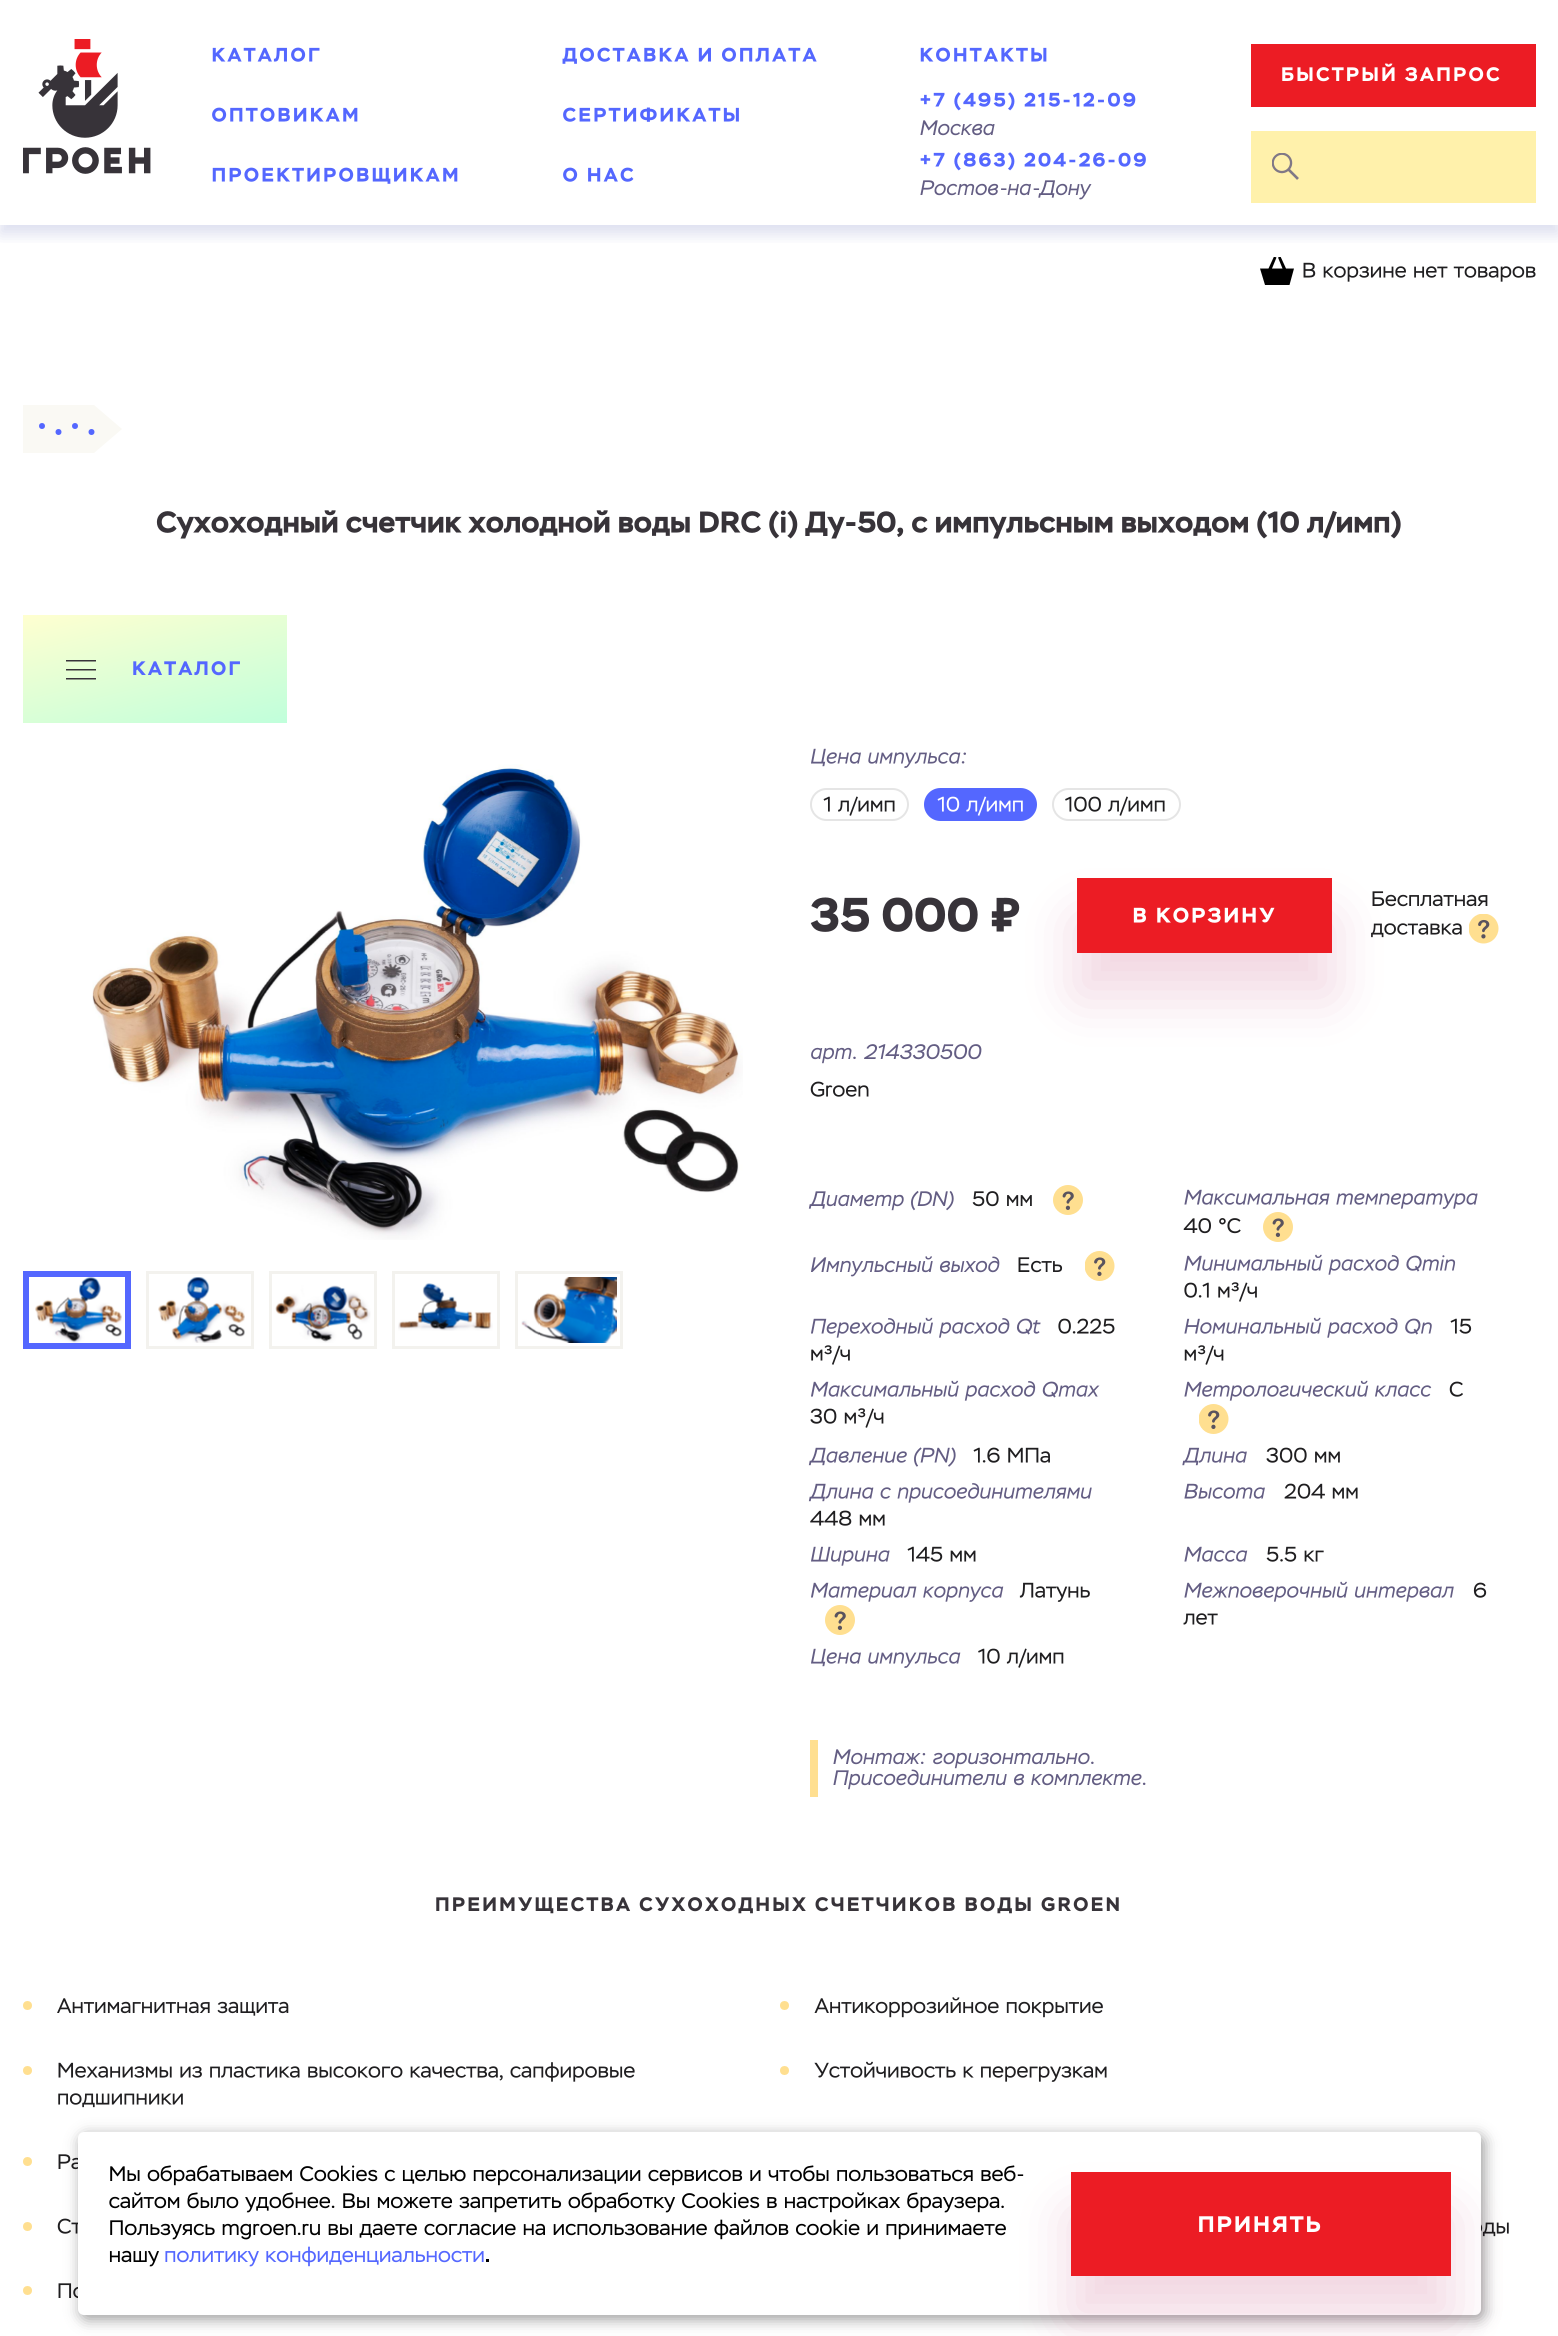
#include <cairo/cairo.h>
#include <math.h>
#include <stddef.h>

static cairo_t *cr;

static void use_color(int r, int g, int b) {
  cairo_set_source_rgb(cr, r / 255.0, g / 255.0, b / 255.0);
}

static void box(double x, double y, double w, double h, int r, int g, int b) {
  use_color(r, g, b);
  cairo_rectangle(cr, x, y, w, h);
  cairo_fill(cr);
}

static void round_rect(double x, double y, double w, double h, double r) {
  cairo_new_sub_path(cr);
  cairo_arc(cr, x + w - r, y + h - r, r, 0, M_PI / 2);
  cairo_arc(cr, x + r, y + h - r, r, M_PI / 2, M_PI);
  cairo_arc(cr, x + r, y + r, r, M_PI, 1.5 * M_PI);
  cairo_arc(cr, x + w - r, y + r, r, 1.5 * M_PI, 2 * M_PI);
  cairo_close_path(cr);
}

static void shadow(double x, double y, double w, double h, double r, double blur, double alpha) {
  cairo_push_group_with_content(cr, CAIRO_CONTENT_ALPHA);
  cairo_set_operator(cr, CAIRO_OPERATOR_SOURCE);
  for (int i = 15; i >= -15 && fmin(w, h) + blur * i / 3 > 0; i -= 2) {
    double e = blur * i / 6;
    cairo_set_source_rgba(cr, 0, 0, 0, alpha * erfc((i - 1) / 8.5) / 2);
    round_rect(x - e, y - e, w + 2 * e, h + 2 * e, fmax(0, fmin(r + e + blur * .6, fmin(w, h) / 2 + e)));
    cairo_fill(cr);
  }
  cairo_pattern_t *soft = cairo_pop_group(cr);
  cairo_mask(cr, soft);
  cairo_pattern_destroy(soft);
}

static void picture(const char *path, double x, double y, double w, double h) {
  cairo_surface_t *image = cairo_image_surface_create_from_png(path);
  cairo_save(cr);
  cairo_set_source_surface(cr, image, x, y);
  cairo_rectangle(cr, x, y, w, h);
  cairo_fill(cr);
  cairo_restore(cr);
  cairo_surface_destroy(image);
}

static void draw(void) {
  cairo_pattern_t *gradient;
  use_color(255, 255, 255);
  cairo_paint(cr);
  cairo_save(cr);
  cairo_rectangle(cr, 1260, 257, 35, 28);
  cairo_clip(cr);
  use_color(0, 0, 0);
  cairo_set_fill_rule(cr, CAIRO_FILL_RULE_EVEN_ODD);
  cairo_new_path(cr);
  cairo_move_to(cr, 1280.5, 256.5);
  cairo_line_to(cr, 1278, 257.5);
  cairo_line_to(cr, 1282.5, 268.5);
  cairo_line_to(cr, 1272, 268.5);
  cairo_line_to(cr, 1276.5, 257.5);
  cairo_line_to(cr, 1274, 256.5);
  cairo_line_to(cr, 1268.5, 268.5);
  cairo_line_to(cr, 1260, 268.5);
  cairo_line_to(cr, 1265, 285);
  cairo_line_to(cr, 1289.5, 285);
  cairo_line_to(cr, 1294, 268.5);
  cairo_line_to(cr, 1286, 268.5);
  cairo_close_path(cr);
  cairo_fill(cr);
  cairo_restore(cr);
  cairo_save(cr);
  cairo_rectangle(cr, 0, 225, 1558, 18);
  cairo_clip(cr);
  use_color(51, 63, 162);
  shadow(0, 9, 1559, 225, 0, 7.5, 0.17);
  cairo_restore(cr);
  picture("img_01.png", 23, 39, 128, 135);
  picture("img_02.png", 212, 47, 108, 15);
  picture("img_03.png", 562, 47, 255, 17);
  picture("img_04.png", 920, 47, 127, 15);
  box(1251, 44, 285, 63, 236, 28, 36);
  picture("img_05.png", 1282, 63, 218, 19);
  picture("img_06.png", 212, 107, 146, 15);
  picture("img_07.png", 563, 107, 176, 15);
  picture("img_08.png", 920, 92, 216, 19);
  picture("img_09.png", 920, 120, 75, 16);
  picture("img_10.png", 212, 167, 246, 17);
  picture("img_11.png", 563, 167, 71, 15);
  picture("img_12.png", 920, 152, 226, 19);
  picture("img_13.png", 920, 180, 172, 20);
  box(1251, 131, 285, 72, 255, 241, 171);
  picture("img_14.png", 1272, 153, 27, 27);
  picture("img_15.png", 1303, 262, 233, 20);
  cairo_save(cr);
  cairo_rectangle(cr, 23, 405, 109, 48);
  cairo_clip(cr);
  use_color(250, 249, 244);
  cairo_set_fill_rule(cr, CAIRO_FILL_RULE_EVEN_ODD);
  cairo_new_path(cr);
  cairo_move_to(cr, -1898, 405);
  cairo_line_to(cr, 94, 405);
  cairo_line_to(cr, 122, 429);
  cairo_line_to(cr, 94, 453);
  cairo_line_to(cr, -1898, 453);
  cairo_close_path(cr);
  cairo_fill(cr);
  cairo_restore(cr);
  use_color(84, 103, 255);
  cairo_arc(cr, 42, 426, 3, 0, 2 * M_PI);
  cairo_fill(cr);
  cairo_arc(cr, 58.5, 432, 3, 0, 2 * M_PI);
  cairo_fill(cr);
  cairo_arc(cr, 75, 426, 3, 0, 2 * M_PI);
  cairo_fill(cr);
  cairo_arc(cr, 91.5, 432, 3, 0, 2 * M_PI);
  cairo_fill(cr);
  picture("img_16.png", 156, 510, 1245, 29);
  gradient = cairo_pattern_create_linear(134, 587, 175, 751);
  cairo_pattern_add_color_stop_rgba(gradient, 0, 1, 1, 0.816, 1);
  cairo_pattern_add_color_stop_rgba(gradient, 1, 0.753, 1, 0.859, 1);
  cairo_set_source(cr, gradient);
  cairo_pattern_destroy(gradient);
  cairo_rectangle(cr, 23, 615, 264, 108);
  cairo_fill(cr);
  picture("img_17.png", 66, 660, 30, 20);
  picture("img_18.png", 133, 661, 107, 15);
  picture("img_19.png", 92, 764, 651, 476);
  picture("img_20.png", 35, 1277, 87, 66);
  cairo_rectangle(cr, 26, 1274, 102, 72);
  use_color(84, 103, 255);
  cairo_set_line_width(cr, 6);
  cairo_stroke(cr);
  cairo_rectangle(cr, 147.5, 1272.5, 105, 75);
  use_color(243, 242, 238);
  cairo_set_line_width(cr, 3);
  cairo_stroke(cr);
  picture("img_21.png", 158, 1277, 87, 66);
  cairo_rectangle(cr, 270.5, 1272.5, 105, 75);
  cairo_stroke(cr);
  picture("img_22.png", 275, 1285, 96, 58);
  cairo_rectangle(cr, 393.5, 1272.5, 105, 75);
  cairo_stroke(cr);
  picture("img_23.png", 398, 1283, 95, 48);
  cairo_rectangle(cr, 516.5, 1272.5, 105, 75);
  cairo_stroke(cr);
  picture("img_24.png", 521, 1277, 96, 66);
  picture("img_25.png", 811, 748, 155, 20);
  round_rect(811, 789, 97, 31, 15.5);
  use_color(229, 229, 229);
  cairo_set_line_width(cr, 2);
  cairo_stroke(cr);
  picture("img_26.png", 823, 796, 72, 20);
  use_color(84, 103, 255);
  round_rect(924, 788, 113, 33, 16.5);
  cairo_fill(cr);
  picture("img_27.png", 937, 796, 86, 20);
  round_rect(1053, 789, 127, 31, 15.5);
  use_color(229, 229, 229);
  cairo_stroke(cr);
  picture("img_28.png", 1065, 796, 100, 20);
  picture("img_29.png", 810, 897, 210, 35);
  picture("img_31.png", 1372, 891, 116, 16);
  picture("img_32.png", 1371, 923, 91, 15);
  use_color(170, 0, 71);
  shadow(1077, 920, 255, 75, 0, 28.5, 0.16);
  box(1077, 878, 255, 75, 236, 28, 36);
  picture("img_30.png", 1133, 907, 142, 16);
  picture("img_33.png", 1469, 914, 30, 30);
  picture("img_34.png", 811, 1047, 45, 17);
  picture("img_35.png", 864, 1044, 118, 16);
  picture("img_36.png", 810, 1081, 59, 16);
  picture("img_37.png", 808, 1190, 146, 21);
  picture("img_38.png", 972, 1191, 60, 16);
  picture("img_39.png", 1053, 1185, 30, 30);
  picture("img_40.png", 1184, 1189, 294, 20);
  picture("img_41.png", 1183, 1218, 58, 16);
  picture("img_39.png", 1263, 1212, 30, 30);
  picture("img_42.png", 811, 1256, 189, 21);
  picture("img_43.png", 1018, 1257, 45, 16);
  picture("img_44.png", 1085, 1251, 30, 30);
  picture("img_45.png", 1184, 1254, 272, 21);
  picture("img_46.png", 1184, 1282, 73, 20);
  picture("img_47.png", 811, 1317, 230, 21);
  picture("img_48.png", 1058, 1318, 57, 16);
  picture("img_49.png", 811, 1345, 39, 20);
  picture("img_50.png", 1184, 1317, 248, 21);
  picture("img_51.png", 1450, 1318, 22, 16);
  picture("img_52.png", 1184, 1345, 40, 20);
  picture("img_53.png", 811, 1380, 289, 21);
  picture("img_54.png", 810, 1408, 74, 20);
  picture("img_55.png", 1184, 1380, 248, 21);
  picture("img_56.png", 1449, 1381, 14, 16);
  picture("img_44.png", 1199, 1404, 30, 30);
  picture("img_57.png", 808, 1447, 148, 20);
  picture("img_58.png", 973, 1447, 77, 16);
  picture("img_59.png", 1182, 1447, 65, 19);
  picture("img_60.png", 1266, 1447, 74, 16);
  picture("img_61.png", 808, 1483, 284, 20);
  picture("img_62.png", 810, 1510, 75, 16);
  picture("img_63.png", 1184, 1483, 81, 16);
  picture("img_64.png", 1284, 1483, 74, 16);
  picture("img_65.png", 811, 1546, 79, 20);
  picture("img_66.png", 907, 1546, 69, 16);
  picture("img_67.png", 1184, 1546, 64, 16);
  picture("img_68.png", 1266, 1546, 58, 16);
  picture("img_69.png", 811, 1582, 193, 20);
  picture("img_70.png", 1019, 1582, 71, 20);
  picture("img_39.png", 825, 1605, 30, 30);
  picture("img_71.png", 1184, 1581, 270, 21);
  picture("img_72.png", 1473, 1582, 14, 16);
  picture("img_73.png", 1183, 1613, 35, 12);
  picture("img_74.png", 811, 1648, 150, 20);
  picture("img_75.png", 978, 1648, 86, 20);
  box(810, 1740, 8, 57, 255, 223, 144);
  picture("img_76.png", 833, 1749, 261, 20);
  picture("img_77.png", 833, 1769, 313, 21);
  picture("img_78.png", 436, 1897, 683, 17);
  cairo_arc(cr, 27.5, 2005.5, 4.5, 0, 2 * M_PI);
  cairo_fill(cr);
  picture("img_79.png", 57, 1998, 232, 18);
  cairo_arc(cr, 784.5, 2005.5, 4.5, 0, 2 * M_PI);
  cairo_fill(cr);
  picture("img_80.png", 814, 1997, 289, 21);
  cairo_arc(cr, 27.5, 2070.5, 4.5, 0, 2 * M_PI);
  cairo_fill(cr);
  picture("img_81.png", 58, 2062, 577, 20);
  picture("img_82.png", 58, 2093, 125, 15);
  cairo_arc(cr, 784.5, 2070.5, 4.5, 0, 2 * M_PI);
  cairo_fill(cr);
  picture("img_83.png", 814, 2061, 293, 21);
  cairo_arc(cr, 27.5, 2161.5, 4.5, 0, 2 * M_PI);
  cairo_fill(cr);
  picture("img_84.png", 58, 2154, 20, 16);
  cairo_arc(cr, 27.5, 2226.5, 4.5, 0, 2 * M_PI);
  cairo_fill(cr);
  picture("img_85.png", 57, 2218, 21, 16);
  picture("img_86.png", 1481, 2222, 28, 15);
  cairo_arc(cr, 27.5, 2290.5, 4.5, 0, 2 * M_PI);
  cairo_fill(cr);
  picture("img_87.png", 58, 2283, 20, 16);
  use_color(0, 0, 0);
  shadow(81, 2136, 1403, 183, 6, 7.5, 0.4);
  use_color(255, 255, 255);
  round_rect(78, 2132, 1403, 183, 6);
  cairo_fill(cr);
  picture("img_88.png", 110, 2165, 914, 21);
  picture("img_89.png", 109, 2192, 895, 21);
  picture("img_90.png", 110, 2219, 896, 21);
  picture("img_91.png", 109, 2250, 50, 17);
  picture("img_92.png", 165, 2246, 319, 21);
  box(486, 2259, 3, 3, 0, 0, 0);
  use_color(170, 0, 71);
  shadow(1071, 2214, 380, 104, 0, 28.5, 0.16);
  box(1071, 2172, 380, 104, 236, 28, 36);
  picture("img_93.png", 1199, 2216, 122, 16);
}

int main(void) {
  cairo_surface_t *surface = cairo_image_surface_create(CAIRO_FORMAT_RGB24, 1558, 2336);
  cr = cairo_create(surface);
  cairo_font_options_t *options = cairo_font_options_create();
  cairo_font_options_set_hint_metrics(options, CAIRO_HINT_METRICS_OFF);
  cairo_font_options_set_hint_style(options, CAIRO_HINT_STYLE_NONE);
  cairo_set_font_options(cr, options);
  cairo_set_miter_limit(cr, 4);
  draw();
  cairo_surface_write_to_png(surface, "out.png");
  cairo_font_options_destroy(options);
  cairo_destroy(cr);
  cairo_surface_destroy(surface);
  return 0;
}
